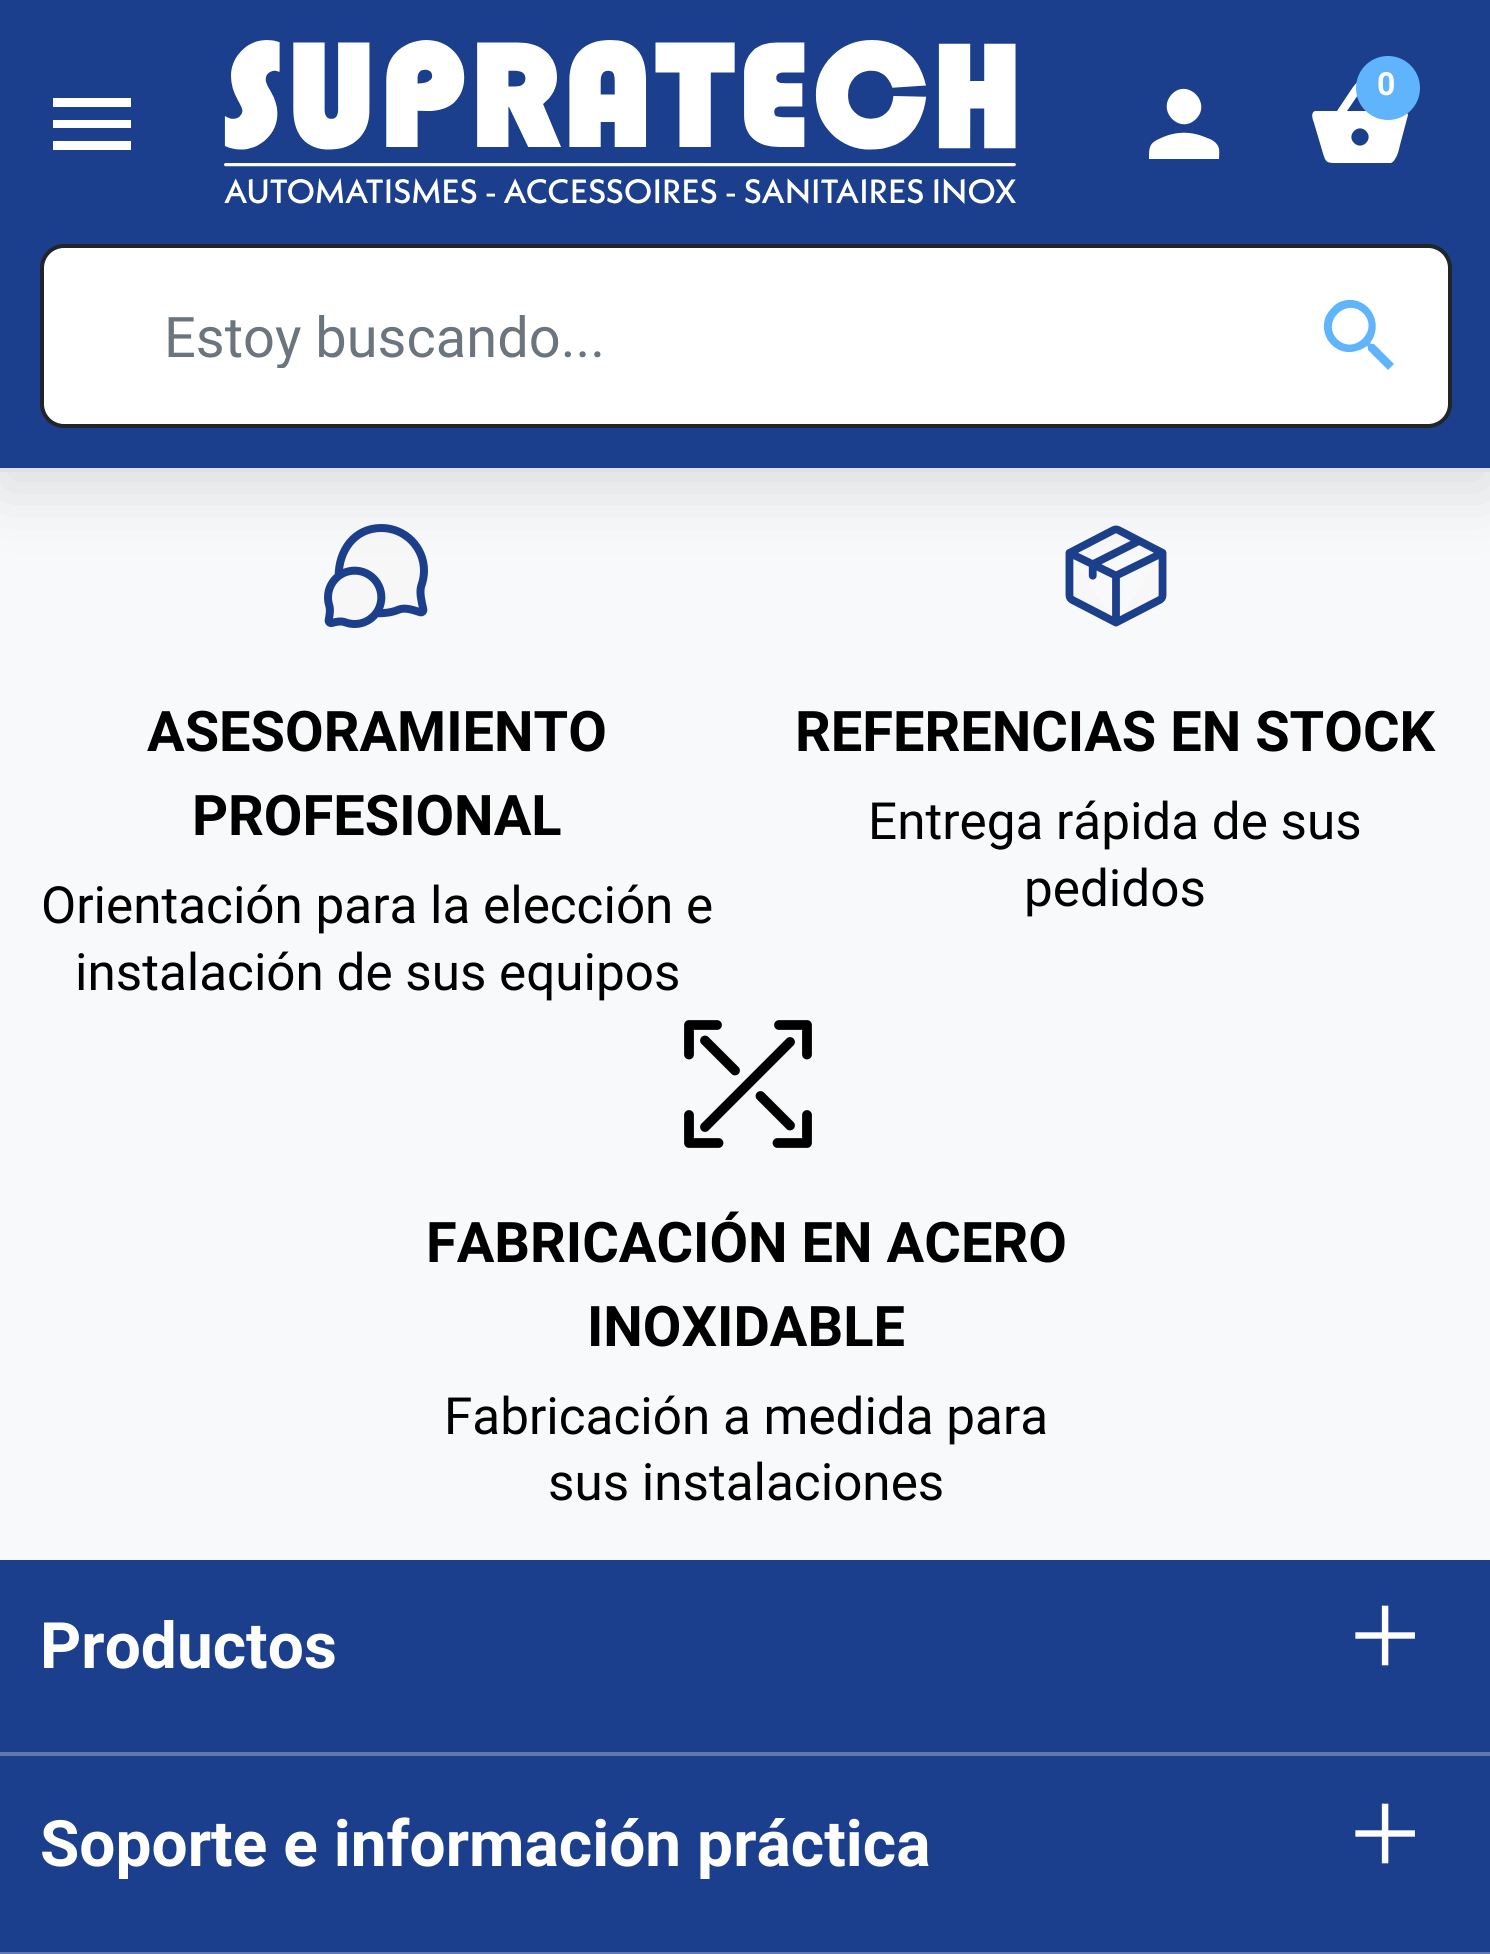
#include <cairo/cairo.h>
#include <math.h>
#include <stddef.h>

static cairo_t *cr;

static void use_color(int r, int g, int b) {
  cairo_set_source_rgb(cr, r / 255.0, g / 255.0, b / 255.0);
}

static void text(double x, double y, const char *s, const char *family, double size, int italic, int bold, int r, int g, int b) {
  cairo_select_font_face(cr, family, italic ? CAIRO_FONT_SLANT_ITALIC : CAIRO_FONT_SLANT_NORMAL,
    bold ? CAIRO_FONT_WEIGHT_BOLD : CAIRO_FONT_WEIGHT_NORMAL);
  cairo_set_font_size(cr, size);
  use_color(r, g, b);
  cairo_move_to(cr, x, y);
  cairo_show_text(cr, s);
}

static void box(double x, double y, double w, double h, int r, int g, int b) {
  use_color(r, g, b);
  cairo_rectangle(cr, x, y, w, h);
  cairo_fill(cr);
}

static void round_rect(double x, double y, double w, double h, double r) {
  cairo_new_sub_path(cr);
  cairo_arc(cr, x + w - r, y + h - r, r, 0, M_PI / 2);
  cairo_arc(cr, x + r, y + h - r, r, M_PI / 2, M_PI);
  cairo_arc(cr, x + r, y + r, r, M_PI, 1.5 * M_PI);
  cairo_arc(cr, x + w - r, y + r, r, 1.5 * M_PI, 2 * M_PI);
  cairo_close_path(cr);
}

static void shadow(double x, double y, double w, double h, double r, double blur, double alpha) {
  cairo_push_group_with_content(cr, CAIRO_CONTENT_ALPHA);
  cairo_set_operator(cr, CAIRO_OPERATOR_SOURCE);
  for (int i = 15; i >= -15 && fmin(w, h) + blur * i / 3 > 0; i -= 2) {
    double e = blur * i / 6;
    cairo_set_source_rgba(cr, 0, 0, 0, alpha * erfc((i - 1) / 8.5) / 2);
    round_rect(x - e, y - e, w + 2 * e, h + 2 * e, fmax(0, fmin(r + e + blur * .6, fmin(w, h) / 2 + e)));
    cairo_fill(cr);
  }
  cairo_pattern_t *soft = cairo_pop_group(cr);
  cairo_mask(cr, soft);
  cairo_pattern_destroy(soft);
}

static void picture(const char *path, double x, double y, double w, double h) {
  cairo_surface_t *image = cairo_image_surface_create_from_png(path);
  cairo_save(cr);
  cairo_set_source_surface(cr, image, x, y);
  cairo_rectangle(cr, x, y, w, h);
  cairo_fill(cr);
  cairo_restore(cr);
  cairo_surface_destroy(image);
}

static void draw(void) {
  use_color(248, 249, 250);
  cairo_paint(cr);
  picture("img_02.png", 324, 524, 104, 104);
  picture("img_03.png", 1065, 525, 102, 102);
  use_color(0, 0, 0);
  shadow(0, 16, 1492, 472, 0, 36, 0.12);
  box(0, 0, 1490, 468, 27, 63, 141);
  box(0, 468, 1490, 4, 222, 226, 230);
  picture("img_01.png", 224, 40, 792, 164);
  use_color(255, 255, 255);
  cairo_new_path(cr);
  cairo_move_to(cr, 1354, 143);
  cairo_curve_to(cr, 1362, 151, 1374, 139, 1366, 131);
  cairo_curve_to(cr, 1358, 123, 1346, 135, 1354, 143);
  cairo_close_path(cr);
  cairo_move_to(cr, 1347, 111);
  cairo_line_to(cr, 1373, 111);
  cairo_line_to(cr, 1360, 92);
  cairo_close_path(cr);
  cairo_move_to(cr, 1383, 111);
  cairo_curve_to(cr, 1387, 111, 1404, 110, 1406, 112);
  cairo_curve_to(cr, 1407, 113, 1408, 114, 1408, 115);
  cairo_line_to(cr, 1400, 145);
  cairo_curve_to(cr, 1399, 149, 1398, 155, 1395, 159);
  cairo_curve_to(cr, 1394, 161, 1393, 162, 1391, 163);
  cairo_line_to(cr, 1388, 163);
  cairo_line_to(cr, 1341, 163);
  cairo_curve_to(cr, 1326, 163, 1326, 164, 1322, 150);
  cairo_line_to(cr, 1314, 123);
  cairo_curve_to(cr, 1313, 120, 1310, 113, 1315, 111);
  cairo_line_to(cr, 1337, 111);
  cairo_line_to(cr, 1353, 87);
  cairo_curve_to(cr, 1355, 85, 1359, 78, 1363, 82);
  cairo_close_path(cr);
  cairo_fill(cr);
  use_color(95, 180, 252);
  cairo_arc(cr, 1388, 88, 32, 0, 2 * M_PI);
  cairo_fill(cr);
  use_color(255, 255, 255);
  cairo_new_path(cr);
  cairo_move_to(cr, 1161, 138);
  cairo_curve_to(cr, 1176, 131, 1192, 131, 1207, 138);
  cairo_curve_to(cr, 1211, 139, 1216, 142, 1218, 146);
  cairo_curve_to(cr, 1220, 150, 1219, 155, 1219, 159);
  cairo_line_to(cr, 1149, 159);
  cairo_curve_to(cr, 1149, 147, 1149, 143, 1161, 138);
  cairo_close_path(cr);
  cairo_move_to(cr, 1196, 119);
  cairo_curve_to(cr, 1180, 135, 1156, 111, 1172, 94);
  cairo_curve_to(cr, 1188, 78, 1212, 103, 1196, 119);
  cairo_close_path(cr);
  cairo_fill(cr);
  cairo_new_path(cr);
  cairo_move_to(cr, 53, 98);
  cairo_line_to(cr, 131, 98);
  cairo_line_to(cr, 131, 107);
  cairo_line_to(cr, 53, 107);
  cairo_close_path(cr);
  cairo_move_to(cr, 53, 128);
  cairo_line_to(cr, 53, 120);
  cairo_line_to(cr, 131, 120);
  cairo_line_to(cr, 131, 128);
  cairo_close_path(cr);
  cairo_move_to(cr, 53, 150);
  cairo_line_to(cr, 53, 141);
  cairo_line_to(cr, 131, 141);
  cairo_line_to(cr, 131, 150);
  cairo_close_path(cr);
  cairo_fill(cr);
  round_rect(42, 246, 1408, 180, 22);
  cairo_fill_preserve(cr);
  use_color(33, 37, 41);
  cairo_set_line_width(cr, 4);
  cairo_stroke(cr);
  use_color(95, 180, 252);
  cairo_new_path(cr);
  cairo_move_to(cr, 1337, 339);
  cairo_curve_to(cr, 1354, 356, 1380, 330, 1363, 313);
  cairo_curve_to(cr, 1346, 297, 1321, 322, 1337, 339);
  cairo_close_path(cr);
  cairo_move_to(cr, 1374, 344);
  cairo_line_to(cr, 1394, 364);
  cairo_line_to(cr, 1388, 370);
  cairo_line_to(cr, 1368, 350);
  cairo_line_to(cr, 1368, 347);
  cairo_line_to(cr, 1367, 346);
  cairo_curve_to(cr, 1363, 349, 1358, 351, 1352, 352);
  cairo_curve_to(cr, 1328, 354, 1314, 325, 1332, 308);
  cairo_curve_to(cr, 1336, 303, 1341, 301, 1347, 300);
  cairo_curve_to(cr, 1371, 298, 1384, 325, 1370, 343);
  cairo_line_to(cr, 1371, 344);
  cairo_close_path(cr);
  cairo_fill(cr);
  cairo_new_path(cr);
  cairo_move_to(cr, 760.5, 1096);
  cairo_line_to(cr, 790, 1125.5);
  use_color(0, 0, 0);
  cairo_set_line_width(cr, 9.8);
  cairo_set_line_cap(cr, CAIRO_LINE_CAP_ROUND);
  cairo_stroke(cr);
  cairo_new_path(cr);
  cairo_move_to(cr, 779, 1025);
  cairo_line_to(cr, 807, 1025);
  cairo_line_to(cr, 807, 1054.5);
  cairo_set_line_join(cr, CAIRO_LINE_JOIN_ROUND);
  cairo_stroke(cr);
  cairo_new_path(cr);
  cairo_move_to(cr, 807, 1115);
  cairo_line_to(cr, 807, 1143);
  cairo_line_to(cr, 777.5, 1143);
  cairo_stroke(cr);
  cairo_new_path(cr);
  cairo_move_to(cr, 717, 1025);
  cairo_line_to(cr, 689, 1025);
  cairo_line_to(cr, 689, 1054.5);
  cairo_stroke(cr);
  cairo_new_path(cr);
  cairo_move_to(cr, 689, 1115);
  cairo_line_to(cr, 689, 1143);
  cairo_line_to(cr, 718.5, 1143);
  cairo_stroke(cr);
  cairo_new_path(cr);
  cairo_move_to(cr, 790, 1042);
  cairo_line_to(cr, 705, 1127);
  cairo_set_line_join(cr, CAIRO_LINE_JOIN_MITER);
  cairo_stroke(cr);
  cairo_new_path(cr);
  cairo_move_to(cr, 705, 1040.5);
  cairo_line_to(cr, 735, 1070.5);
  cairo_stroke(cr);
  box(0, 1560, 1490, 392, 27, 63, 141);
  box(0, 1752, 1490, 4, 95, 121, 175);
  box(0, 1952, 1490, 2, 95, 121, 175);
  text(1377, 95, "0", "Roboto", 32, 0, 1, 255, 255, 255);
  cairo_save(cr);
  cairo_rectangle(cr, 164, 304, 988, 64);
  cairo_clip(cr);
  text(164, 357, "Estoy buscando...", "Roboto", 56, 0, 0, 108, 117, 125);
  cairo_restore(cr);
  text(147, 751, "ASESORAMIENTO", "Roboto", 56, 0, 1, 0, 0, 0);
  text(192, 835, "PROFESIONAL", "Roboto", 56, 0, 1, 0, 0, 0);
  text(41, 923, "Orientación para la elección e", "Roboto", 51.25, 0, 0, 0, 0, 0);
  text(75, 990, "instalación de sus equipos", "Roboto", 51.25, 0, 0, 0, 0, 0);
  text(795, 751, "REFERENCIAS EN STOCK", "Roboto", 56, 0, 1, 0, 0, 0);
  text(868, 839, "Entrega rápida de sus", "Roboto", 51.25, 0, 0, 0, 0, 0);
  text(1024, 906, "pedidos", "Roboto", 51.25, 0, 0, 0, 0, 0);
  text(426, 1262, "FABRICACIÓN EN ACERO", "Roboto", 56, 0, 1, 0, 0, 0);
  text(587, 1346, "INOXIDABLE", "Roboto", 56, 0, 1, 0, 0, 0);
  text(444, 1434, "Fabricación a medida para", "Roboto", 51.25, 0, 0, 0, 0, 0);
  text(548, 1500, "sus instalaciones", "Roboto", 51.25, 0, 0, 0, 0, 0);
  text(40, 1668, "Productos", "Roboto", 64, 0, 1, 255, 255, 255);
  text(1349, 1678, "+", "Liberation Serif", 128, 0, 0, 255, 255, 255);
  text(40, 1866, "Soporte e información práctica", "Roboto", 64, 0, 1, 255, 255, 255);
  text(1349, 1876, "+", "Liberation Serif", 128, 0, 0, 255, 255, 255);
}

int main(void) {
  cairo_surface_t *surface = cairo_image_surface_create(CAIRO_FORMAT_RGB24, 1490, 1954);
  cr = cairo_create(surface);
  cairo_font_options_t *options = cairo_font_options_create();
  cairo_font_options_set_hint_metrics(options, CAIRO_HINT_METRICS_OFF);
  cairo_font_options_set_hint_style(options, CAIRO_HINT_STYLE_NONE);
  cairo_set_font_options(cr, options);
  cairo_set_miter_limit(cr, 4);
  draw();
  cairo_surface_write_to_png(surface, "out.png");
  cairo_font_options_destroy(options);
  cairo_destroy(cr);
  cairo_surface_destroy(surface);
  return 0;
}
